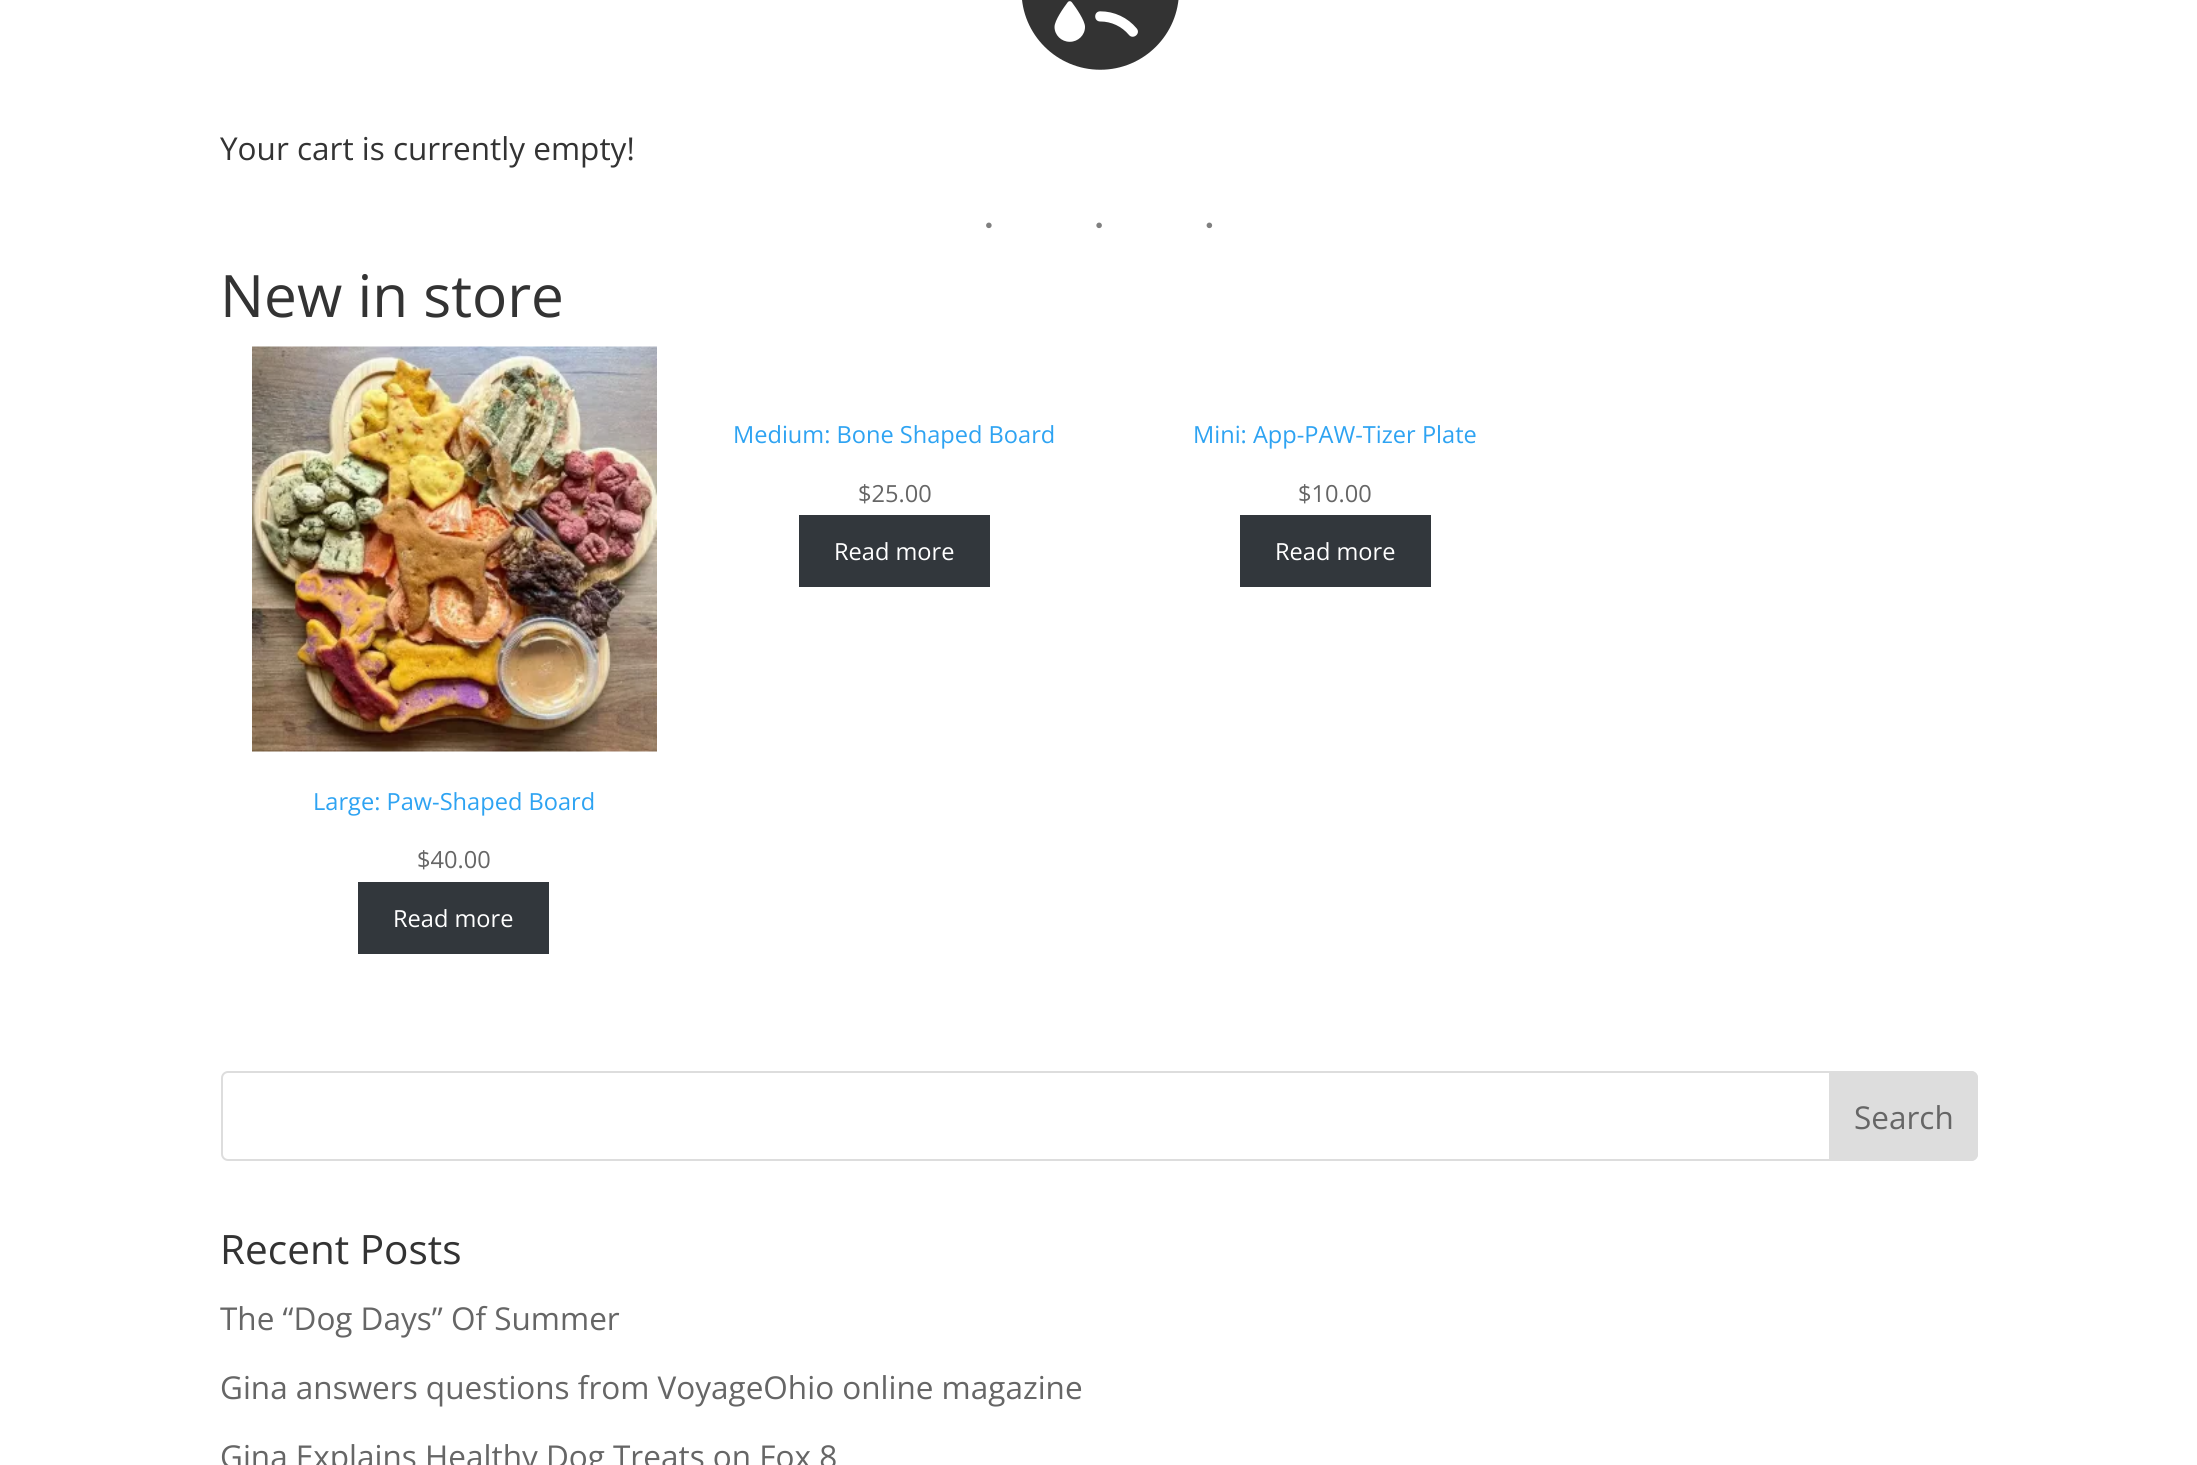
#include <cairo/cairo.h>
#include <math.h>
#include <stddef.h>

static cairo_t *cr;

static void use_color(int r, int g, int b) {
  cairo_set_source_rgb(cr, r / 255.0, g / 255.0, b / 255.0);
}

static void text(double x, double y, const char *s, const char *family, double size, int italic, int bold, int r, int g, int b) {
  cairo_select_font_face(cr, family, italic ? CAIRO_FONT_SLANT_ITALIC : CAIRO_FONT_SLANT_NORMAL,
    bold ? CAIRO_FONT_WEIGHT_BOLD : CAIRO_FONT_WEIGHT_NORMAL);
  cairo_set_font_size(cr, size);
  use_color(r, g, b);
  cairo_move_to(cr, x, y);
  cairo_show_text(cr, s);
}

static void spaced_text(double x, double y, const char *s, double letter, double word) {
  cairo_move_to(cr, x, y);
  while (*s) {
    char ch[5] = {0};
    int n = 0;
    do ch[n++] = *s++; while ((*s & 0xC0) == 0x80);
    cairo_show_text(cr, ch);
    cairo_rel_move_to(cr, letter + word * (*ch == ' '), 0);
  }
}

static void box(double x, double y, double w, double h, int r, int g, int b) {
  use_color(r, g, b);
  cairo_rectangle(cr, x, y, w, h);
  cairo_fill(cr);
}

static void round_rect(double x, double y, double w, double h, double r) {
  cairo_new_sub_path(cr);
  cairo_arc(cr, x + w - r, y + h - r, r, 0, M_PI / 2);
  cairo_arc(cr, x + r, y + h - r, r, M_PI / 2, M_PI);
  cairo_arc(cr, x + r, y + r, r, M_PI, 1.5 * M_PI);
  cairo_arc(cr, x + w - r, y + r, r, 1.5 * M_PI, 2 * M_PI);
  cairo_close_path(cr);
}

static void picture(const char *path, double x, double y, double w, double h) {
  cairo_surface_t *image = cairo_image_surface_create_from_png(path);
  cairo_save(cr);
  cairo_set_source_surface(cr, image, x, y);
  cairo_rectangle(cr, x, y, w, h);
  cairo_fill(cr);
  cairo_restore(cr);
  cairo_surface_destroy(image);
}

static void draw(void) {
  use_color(255, 255, 255);
  cairo_paint(cr);
  picture("img_01.png", 1022, 0, 157, 70);
  box(799, 515, 191, 72, 50, 55, 60);
  box(1240, 515, 191, 72, 50, 55, 60);
  picture("img_02.png", 252, 346, 405, 406);
  box(358, 882, 191, 72, 50, 55, 60);
  round_rect(222, 1072, 1755, 88, 6);
  use_color(221, 221, 221);
  cairo_stroke(cr);
  cairo_new_path(cr);
  cairo_move_to(cr, 1830, 1072);
  cairo_line_to(cr, 1971, 1072);
  cairo_curve_to(cr, 1974.5, 1072, 1977, 1074.5, 1977, 1078);
  cairo_line_to(cr, 1977, 1154);
  cairo_curve_to(cr, 1977, 1157.5, 1974.5, 1160, 1971, 1160);
  cairo_line_to(cr, 1830, 1160);
  cairo_close_path(cr);
  cairo_fill_preserve(cr);
  cairo_stroke(cr);
  text(220, 160, "Your cart is currently empty!", "Open Sans", 31.5, 0, 0, 51, 51, 51);
  cairo_select_font_face(cr, "Liberation Serif", CAIRO_FONT_SLANT_NORMAL, CAIRO_FONT_WEIGHT_NORMAL);
  cairo_set_font_size(cr, 47.25);
  use_color(128, 128, 128);
  spaced_text(981, 241, "···", 94.5, 0);
  text(220, 317, "New in store", "Open Sans", 58.5, 0, 0, 51, 51, 51);
  text(733, 443, "Medium: Bone Shaped Board", "Open Sans", 23.6, 0, 0, 46, 163, 242);
  text(858, 502, "$25.00", "Open Sans", 23.6, 0, 0, 102, 102, 102);
  text(834, 560, "Read more", "Open Sans", 23.6, 0, 0, 255, 255, 255);
  text(1193, 443, "Mini: App-PAW-Tizer Plate", "Open Sans", 23.6, 0, 0, 46, 163, 242);
  text(1298, 502, "$10.00", "Open Sans", 23.6, 0, 0, 102, 102, 102);
  text(1275, 560, "Read more", "Open Sans", 23.6, 0, 0, 255, 255, 255);
  text(313, 810, "Large: Paw-Shaped Board", "Open Sans", 23.6, 0, 0, 46, 163, 242);
  text(417, 868, "$40.00", "Open Sans", 23.6, 0, 0, 102, 102, 102);
  text(393, 927, "Read more", "Open Sans", 23.6, 0, 0, 255, 255, 255);
  text(1854, 1129, "Search", "Open Sans", 31.5, 0, 0, 102, 102, 102);
  text(220, 1264, "Recent Posts", "Open Sans", 40.5, 0, 0, 51, 51, 51);
  text(220, 1330, "The “Dog Days” Of Summer", "Open Sans", 31.5, 0, 0, 102, 102, 102);
  text(220, 1399, "Gina answers questions from VoyageOhio online magazine", "Open Sans", 31.5, 0, 0, 102, 102, 102);
  text(220, 1468, "Gina Explains Healthy Dog Treats on Fox 8", "Open Sans", 31.5, 0, 0, 102, 102, 102);
}

int main(void) {
  cairo_surface_t *surface = cairo_image_surface_create(CAIRO_FORMAT_RGB24, 2197, 1465);
  cr = cairo_create(surface);
  cairo_font_options_t *options = cairo_font_options_create();
  cairo_font_options_set_hint_metrics(options, CAIRO_HINT_METRICS_OFF);
  cairo_font_options_set_hint_style(options, CAIRO_HINT_STYLE_NONE);
  cairo_set_font_options(cr, options);
  cairo_set_miter_limit(cr, 4);
  draw();
  cairo_surface_write_to_png(surface, "out.png");
  cairo_font_options_destroy(options);
  cairo_destroy(cr);
  cairo_surface_destroy(surface);
  return 0;
}
